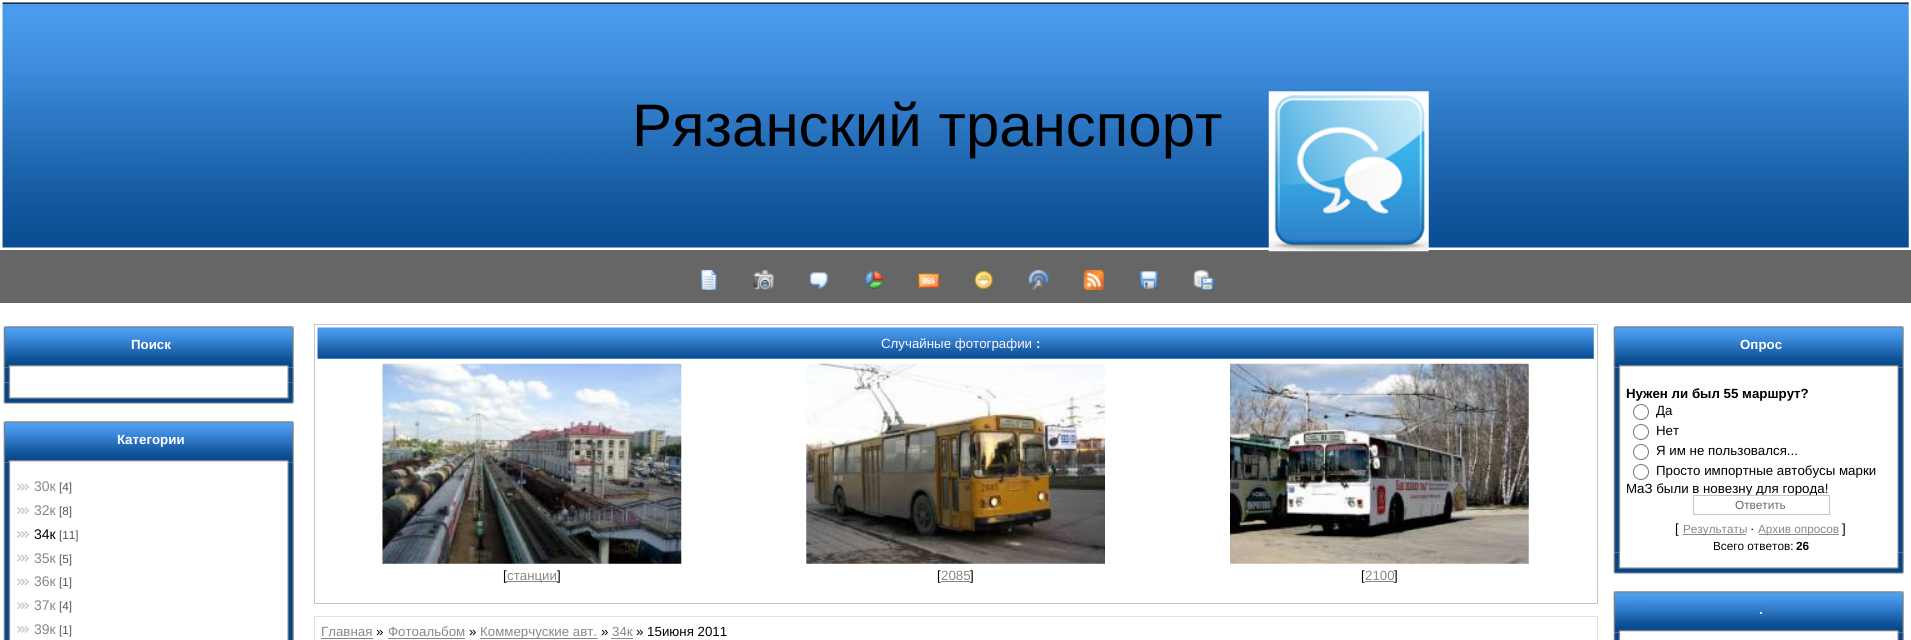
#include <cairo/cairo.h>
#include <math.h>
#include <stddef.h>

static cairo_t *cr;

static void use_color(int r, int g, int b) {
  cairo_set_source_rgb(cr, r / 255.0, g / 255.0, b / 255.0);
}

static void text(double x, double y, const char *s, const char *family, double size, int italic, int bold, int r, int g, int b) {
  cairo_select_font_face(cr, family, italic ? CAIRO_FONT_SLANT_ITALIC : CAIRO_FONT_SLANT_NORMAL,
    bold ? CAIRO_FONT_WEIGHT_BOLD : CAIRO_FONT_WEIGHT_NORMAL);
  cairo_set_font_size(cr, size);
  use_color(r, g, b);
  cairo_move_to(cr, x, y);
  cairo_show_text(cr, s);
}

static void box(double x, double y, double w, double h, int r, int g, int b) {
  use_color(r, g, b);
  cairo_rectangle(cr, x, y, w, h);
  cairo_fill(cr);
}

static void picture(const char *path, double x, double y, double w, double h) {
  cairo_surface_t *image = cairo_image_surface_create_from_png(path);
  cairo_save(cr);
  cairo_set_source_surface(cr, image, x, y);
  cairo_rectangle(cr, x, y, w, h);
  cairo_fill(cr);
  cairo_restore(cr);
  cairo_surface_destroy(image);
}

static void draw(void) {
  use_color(255, 255, 255);
  cairo_paint(cr);
  picture("img_01.png", 2, 2, 1907, 246);
  box(0, 250, 1911, 53, 102, 102, 102);
  picture("img_02.png", 1268, 91, 161, 161);
  picture("img_03.png", 701, 270, 16, 20);
  picture("img_04.png", 753, 270, 21, 20);
  picture("img_05.png", 809, 272, 19, 17);
  picture("img_06.png", 865, 271, 18, 18);
  picture("img_07.png", 918, 273, 21, 15);
  picture("img_08.png", 974, 271, 19, 18);
  picture("img_09.png", 1028, 270, 21, 20);
  picture("img_10.png", 1083, 270, 21, 20);
  picture("img_11.png", 1139, 271, 19, 18);
  picture("img_12.png", 1193, 270, 21, 20);
  picture("img_13.png", 3, 326, 291, 42);
  picture("img_14.png", 3, 367, 291, 16);
  picture("img_15.png", 3, 382, 291, 22);
  picture("img_16.png", 3, 421, 291, 42);
  picture("img_17.png", 3, 462, 291, 178);
  picture("img_18.png", 17, 483, 12, 8);
  picture("img_19.png", 17, 507, 12, 7);
  picture("img_20.png", 17, 531, 12, 7);
  picture("img_21.png", 17, 554, 12, 8);
  picture("img_18.png", 17, 578, 12, 8);
  picture("img_19.png", 17, 602, 12, 7);
  picture("img_20.png", 17, 626, 12, 7);
  cairo_rectangle(cr, 314.5, 324.5, 1283, 279);
  use_color(198, 198, 198);
  cairo_set_line_width(cr, 1);
  cairo_stroke(cr);
  picture("img_22.png", 317, 327, 1277, 32);
  picture("img_23.png", 382, 363, 300, 201);
  picture("img_24.png", 806, 363, 299, 201);
  box(941, 581, 29, 1, 139, 136, 129);
  picture("img_25.png", 1230, 363, 299, 201);
  box(1365, 581, 29, 1, 139, 136, 129);
  cairo_rectangle(cr, 314.5, 616.5, 1283, 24);
  use_color(225, 225, 225);
  cairo_stroke(cr);
  box(321, 638, 52, 1, 139, 136, 129);
  box(388, 638, 77, 1, 139, 136, 129);
  box(480, 638, 118, 1, 139, 136, 129);
  box(611, 638, 22, 1, 139, 136, 129);
  picture("img_26.png", 1613, 326, 291, 42);
  picture("img_27.png", 1613, 367, 291, 186);
  cairo_arc(cr, 1641, 412, 7.5, 0, 2 * M_PI);
  use_color(118, 118, 118);
  cairo_stroke(cr);
  cairo_arc(cr, 1641, 432, 7.5, 0, 2 * M_PI);
  cairo_stroke(cr);
  cairo_arc(cr, 1641, 452, 7.5, 0, 2 * M_PI);
  cairo_stroke(cr);
  cairo_arc(cr, 1641, 472, 7.5, 0, 2 * M_PI);
  cairo_stroke(cr);
  box(1683, 534, 63, 1, 139, 136, 129);
  box(1759, 534, 80, 1, 139, 136, 129);
  picture("img_28.png", 1613, 552, 291, 22);
  picture("img_29.png", 1613, 591, 291, 42);
  picture("img_30.png", 1613, 632, 291, 8);
  text(632, 146, "Рязанский транспорт", "Liberation Sans", 60, 0, 0, 0, 0, 0);
  text(131, 349, "Поиск", "Liberation Sans", 13.3, 0, 1, 255, 255, 255);
  text(117, 444, "Категории", "Liberation Sans", 13.3, 0, 1, 255, 255, 255);
  text(34, 491, "30к", "Liberation Sans", 14, 0, 0, 139, 136, 129);
  text(59, 491, "[4]", "Liberation Sans", 11.75, 0, 0, 85, 85, 85);
  text(34, 515, "32к", "Liberation Sans", 14, 0, 0, 139, 136, 129);
  text(59, 515, "[8]", "Liberation Sans", 11.75, 0, 0, 85, 85, 85);
  text(34, 539, "34к", "Liberation Sans", 14, 0, 0, 0, 0, 0);
  text(59, 539, "[11]", "Liberation Sans", 11.75, 0, 0, 85, 85, 85);
  text(34, 563, "35к", "Liberation Sans", 14, 0, 0, 139, 136, 129);
  text(59, 563, "[5]", "Liberation Sans", 11.75, 0, 0, 85, 85, 85);
  text(34, 586, "36к", "Liberation Sans", 14, 0, 0, 139, 136, 129);
  text(59, 586, "[1]", "Liberation Sans", 11.75, 0, 0, 85, 85, 85);
  text(34, 610, "37к", "Liberation Sans", 14, 0, 0, 139, 136, 129);
  text(59, 610, "[4]", "Liberation Sans", 11.75, 0, 0, 85, 85, 85);
  text(34, 634, "39к", "Liberation Sans", 14, 0, 0, 139, 136, 129);
  text(59, 634, "[1]", "Liberation Sans", 11.75, 0, 0, 85, 85, 85);
  text(881, 348, "Случайные фотографии", "Liberation Sans", 13.3, 0, 0, 255, 244, 255);
  text(1036, 348, ":", "Liberation Sans", 13.3, 0, 1, 255, 244, 255);
  text(503, 580, "[", "Liberation Sans", 13.3, 0, 0, 0, 0, 0);
  box(506, 581, 52, 1, 139, 136, 129);
  text(507, 580, "станции", "Liberation Sans", 13.3, 0, 0, 139, 136, 129);
  text(557, 580, "]", "Liberation Sans", 13.3, 0, 0, 0, 0, 0);
  text(937, 580, "[", "Liberation Sans", 13.3, 0, 0, 0, 0, 0);
  text(941, 580, "2085", "Liberation Sans", 13.3, 0, 0, 139, 136, 129);
  text(970, 580, "]", "Liberation Sans", 13.3, 0, 0, 0, 0, 0);
  text(1361, 580, "[", "Liberation Sans", 13.3, 0, 0, 0, 0, 0);
  text(1365, 580, "2100", "Liberation Sans", 13.3, 0, 0, 139, 136, 129);
  text(1394, 580, "]", "Liberation Sans", 13.3, 0, 0, 0, 0, 0);
  text(321, 636, "Главная", "Liberation Sans", 13.3, 0, 0, 139, 136, 129);
  text(376, 636, "»", "Liberation Sans", 13.3, 0, 0, 0, 0, 0);
  text(388, 636, "Фотоальбом", "Liberation Sans", 13.3, 0, 0, 139, 136, 129);
  text(469, 636, "»", "Liberation Sans", 13.3, 0, 0, 0, 0, 0);
  text(480, 636, "Коммерчуские авт.", "Liberation Sans", 13.3, 0, 0, 139, 136, 129);
  text(601, 636, "»", "Liberation Sans", 13.3, 0, 0, 0, 0, 0);
  text(612, 636, "34к", "Liberation Sans", 13.3, 0, 0, 139, 136, 129);
  text(636, 636, "» 15июня 2011", "Liberation Sans", 13.3, 0, 0, 0, 0, 0);
  text(1740, 349, "Опрос", "Liberation Sans", 13.3, 0, 1, 255, 255, 255);
  text(1626, 398, "Нужен ли был 55 маршрут?", "Liberation Sans", 13.3, 0, 1, 0, 0, 0);
  text(1656, 415, "Да", "Liberation Sans", 13.3, 0, 0, 0, 0, 0);
  text(1656, 435, "Нет", "Liberation Sans", 13.3, 0, 0, 0, 0, 0);
  text(1656, 455, "Я им не пользовался...", "Liberation Sans", 13.3, 0, 0, 0, 0, 0);
  text(1656, 475, "Просто импортные автобусы марки", "Liberation Sans", 13.3, 0, 0, 0, 0, 0);
  text(1626, 493, "МаЗ были в новезну для города!", "Liberation Sans", 13.3, 0, 0, 0, 0, 0);
  cairo_rectangle(cr, 1693.5, 495.5, 136, 19);
  use_color(196, 196, 196);
  cairo_stroke(cr);
  text(1735, 509, "Ответить", "Liberation Sans", 11.75, 0, 0, 104, 104, 104);
  text(1675, 533, "[", "Liberation Sans", 13.3, 0, 0, 0, 0, 0);
  text(1683, 533, "Результаты", "Liberation Sans", 11.75, 0, 0, 139, 136, 129);
  text(1750, 533, "·", "Liberation Sans", 13.3, 0, 0, 0, 0, 0);
  text(1758, 533, "Архив опросов", "Liberation Sans", 11.75, 0, 0, 139, 136, 129);
  text(1842, 533, "]", "Liberation Sans", 13.3, 0, 0, 0, 0, 0);
  text(1713, 550, "Всего ответов:", "Liberation Sans", 11.75, 0, 0, 0, 0, 0);
  text(1796, 550, "26", "Liberation Sans", 11.75, 0, 1, 0, 0, 0);
  text(1759, 614, ".", "Liberation Sans", 13.3, 0, 1, 255, 255, 255);
}

int main(void) {
  cairo_surface_t *surface = cairo_image_surface_create(CAIRO_FORMAT_RGB24, 1911, 640);
  cr = cairo_create(surface);
  cairo_font_options_t *options = cairo_font_options_create();
  cairo_font_options_set_hint_metrics(options, CAIRO_HINT_METRICS_OFF);
  cairo_font_options_set_hint_style(options, CAIRO_HINT_STYLE_NONE);
  cairo_set_font_options(cr, options);
  cairo_set_miter_limit(cr, 4);
  draw();
  cairo_surface_write_to_png(surface, "out.png");
  cairo_font_options_destroy(options);
  cairo_destroy(cr);
  cairo_surface_destroy(surface);
  return 0;
}
